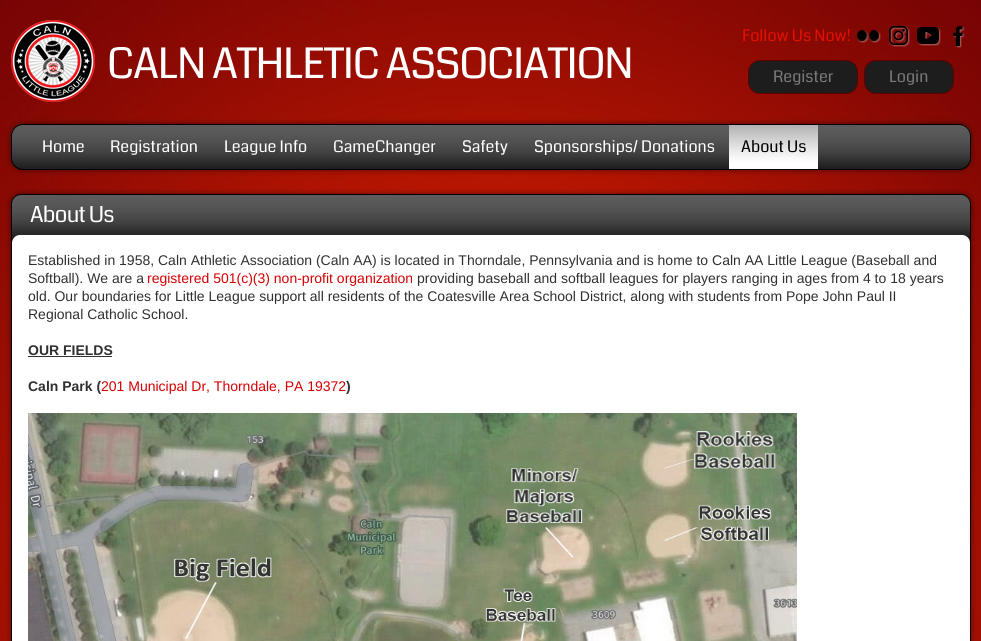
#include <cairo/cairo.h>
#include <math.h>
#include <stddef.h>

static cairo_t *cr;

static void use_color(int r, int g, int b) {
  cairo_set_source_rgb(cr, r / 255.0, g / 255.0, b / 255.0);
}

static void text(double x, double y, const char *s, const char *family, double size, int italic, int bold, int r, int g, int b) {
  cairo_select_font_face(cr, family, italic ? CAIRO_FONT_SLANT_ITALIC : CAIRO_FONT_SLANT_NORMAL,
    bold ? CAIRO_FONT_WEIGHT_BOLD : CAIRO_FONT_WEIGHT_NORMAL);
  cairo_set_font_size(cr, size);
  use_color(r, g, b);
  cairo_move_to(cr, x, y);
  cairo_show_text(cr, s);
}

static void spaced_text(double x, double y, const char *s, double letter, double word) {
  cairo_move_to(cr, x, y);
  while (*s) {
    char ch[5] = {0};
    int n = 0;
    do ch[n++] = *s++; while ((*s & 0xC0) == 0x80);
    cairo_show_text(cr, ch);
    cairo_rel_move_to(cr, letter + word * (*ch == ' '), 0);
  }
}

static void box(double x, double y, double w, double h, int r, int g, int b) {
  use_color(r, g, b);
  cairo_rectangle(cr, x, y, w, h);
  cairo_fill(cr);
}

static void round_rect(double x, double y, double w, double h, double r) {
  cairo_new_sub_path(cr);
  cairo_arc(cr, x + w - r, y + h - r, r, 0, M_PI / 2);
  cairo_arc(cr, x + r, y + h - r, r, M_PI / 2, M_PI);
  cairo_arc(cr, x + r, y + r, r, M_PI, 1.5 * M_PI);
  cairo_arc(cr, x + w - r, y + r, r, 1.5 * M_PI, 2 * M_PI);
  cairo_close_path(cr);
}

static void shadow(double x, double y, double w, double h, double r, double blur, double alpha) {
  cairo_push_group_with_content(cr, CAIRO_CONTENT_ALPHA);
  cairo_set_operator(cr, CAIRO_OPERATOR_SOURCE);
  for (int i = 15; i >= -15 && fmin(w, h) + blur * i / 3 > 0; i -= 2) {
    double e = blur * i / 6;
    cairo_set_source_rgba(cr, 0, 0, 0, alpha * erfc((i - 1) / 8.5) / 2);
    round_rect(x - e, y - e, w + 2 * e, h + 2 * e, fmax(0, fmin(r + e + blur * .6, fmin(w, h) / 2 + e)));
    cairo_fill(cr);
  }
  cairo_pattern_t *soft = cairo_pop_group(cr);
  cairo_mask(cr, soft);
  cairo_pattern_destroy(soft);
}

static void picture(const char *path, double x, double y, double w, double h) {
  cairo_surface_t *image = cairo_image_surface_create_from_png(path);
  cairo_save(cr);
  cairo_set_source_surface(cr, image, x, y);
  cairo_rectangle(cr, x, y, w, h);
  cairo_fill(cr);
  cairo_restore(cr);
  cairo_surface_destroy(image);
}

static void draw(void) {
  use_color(255, 255, 255);
  cairo_paint(cr);
  picture("img_01.png", 0, 0, 981, 641);
  picture("img_02.png", 11, 20, 84, 82);
  picture("img_03.png", 857, 30, 24, 13);
  picture("img_04.png", 889, 26, 21, 21);
  picture("img_05.png", 917, 27, 24, 19);
  picture("img_06.png", 953, 26, 12, 22);
  use_color(29, 29, 29);
  round_rect(748.5, 60.5, 109, 33, 11.5);
  cairo_fill_preserve(cr);
  use_color(95, 0, 0);
  cairo_set_line_width(cr, 1);
  cairo_stroke(cr);
  use_color(29, 29, 29);
  round_rect(864.5, 60.5, 89, 33, 11.5);
  cairo_fill_preserve(cr);
  use_color(95, 0, 0);
  cairo_stroke(cr);
  use_color(0, 0, 0);
  shadow(11, 124, 960, 46, 12, 3, 0.5);
  picture("img_07.png", 11, 125, 960, 45);
  round_rect(11.5, 124.5, 959, 45, 11.5);
  use_color(0, 0, 0);
  cairo_stroke(cr);
  picture("img_08.png", 729, 125, 89, 44);
  use_color(0, 0, 0);
  shadow(11, 194, 960, 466, 10, 3, 0.5);
  picture("img_09.png", 11, 195, 960, 48);
  round_rect(11.5, 194.5, 959, 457, 9.5);
  use_color(0, 0, 0);
  cairo_stroke(cr);
  use_color(255, 255, 255);
  round_rect(12, 235, 958, 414, 8);
  cairo_fill(cr);
  box(28, 356, 84, 1, 48, 48, 48);
  picture("img_10.png", 28, 413, 769, 228);
  cairo_select_font_face(cr, "Coda", CAIRO_FONT_SLANT_NORMAL, CAIRO_FONT_WEIGHT_NORMAL);
  cairo_set_font_size(cr, 42);
  use_color(255, 255, 255);
  spaced_text(107, 78, "CALN ATHLETIC ASSOCIATION", -1.25, 0);
  text(742, 41, "Follow Us Now!", "Coda", 16, 0, 0, 226, 17, 0);
  text(773, 82, "Register", "Coda", 16, 0, 0, 123, 122, 122);
  text(889, 82, "Login", "Coda", 16, 0, 0, 123, 122, 122);
  text(42, 152, "Home", "Coda", 16, 0, 0, 255, 255, 255);
  text(110, 152, "Registration", "Coda", 16, 0, 0, 255, 255, 255);
  text(224, 152, "League Info", "Coda", 16, 0, 0, 255, 255, 255);
  text(333, 152, "GameChanger", "Coda", 16, 0, 0, 255, 255, 255);
  text(462, 152, "Safety", "Coda", 16, 0, 0, 255, 255, 255);
  text(534, 152, "Sponsorships/ Donations", "Coda", 16, 0, 0, 255, 255, 255);
  text(741, 152, "About Us", "Coda", 16, 0, 0, 0, 0, 0);
  cairo_set_font_size(cr, 22);
  use_color(255, 255, 255);
  spaced_text(30, 222, "About Us", -0.75, 0);
  text(28, 265, "Established in 1958, Caln Athletic Association (Caln AA) is located in Thorndale, Pennsylvania and is home to Caln AA Little League (Baseball and", "Liberation Sans", 14, 0, 0, 48, 48, 48);
  text(28, 283, "Softball). We are a", "Liberation Sans", 14, 0, 0, 48, 48, 48);
  text(147, 283, "registered 501(c)(3) non-profit organization", "Liberation Sans", 14, 0, 0, 214, 0, 2);
  text(417, 283, "providing baseball and softball leagues for players ranging in ages from 4 to 18 years", "Liberation Sans", 14, 0, 0, 48, 48, 48);
  text(28, 301, "old. Our boundaries for Little League support all residents of the Coatesville Area School District, along with students from Pope John Paul II", "Liberation Sans", 14, 0, 0, 48, 48, 48);
  text(28, 319, "Regional Catholic School.", "Liberation Sans", 14, 0, 0, 48, 48, 48);
  text(28, 355, "OUR FIELDS", "Liberation Sans", 14, 0, 1, 48, 48, 48);
  text(28, 391, "Caln Park (", "Liberation Sans", 14, 0, 1, 48, 48, 48);
  text(101, 391, "201 Municipal Dr, Thorndale, PA 19372", "Liberation Sans", 14, 0, 0, 214, 0, 2);
  text(346, 391, ")", "Liberation Sans", 14, 0, 1, 48, 48, 48);
}

int main(void) {
  cairo_surface_t *surface = cairo_image_surface_create(CAIRO_FORMAT_RGB24, 981, 641);
  cr = cairo_create(surface);
  cairo_font_options_t *options = cairo_font_options_create();
  cairo_font_options_set_hint_metrics(options, CAIRO_HINT_METRICS_OFF);
  cairo_font_options_set_hint_style(options, CAIRO_HINT_STYLE_NONE);
  cairo_set_font_options(cr, options);
  cairo_set_miter_limit(cr, 4);
  draw();
  cairo_surface_write_to_png(surface, "out.png");
  cairo_font_options_destroy(options);
  cairo_destroy(cr);
  cairo_surface_destroy(surface);
  return 0;
}
